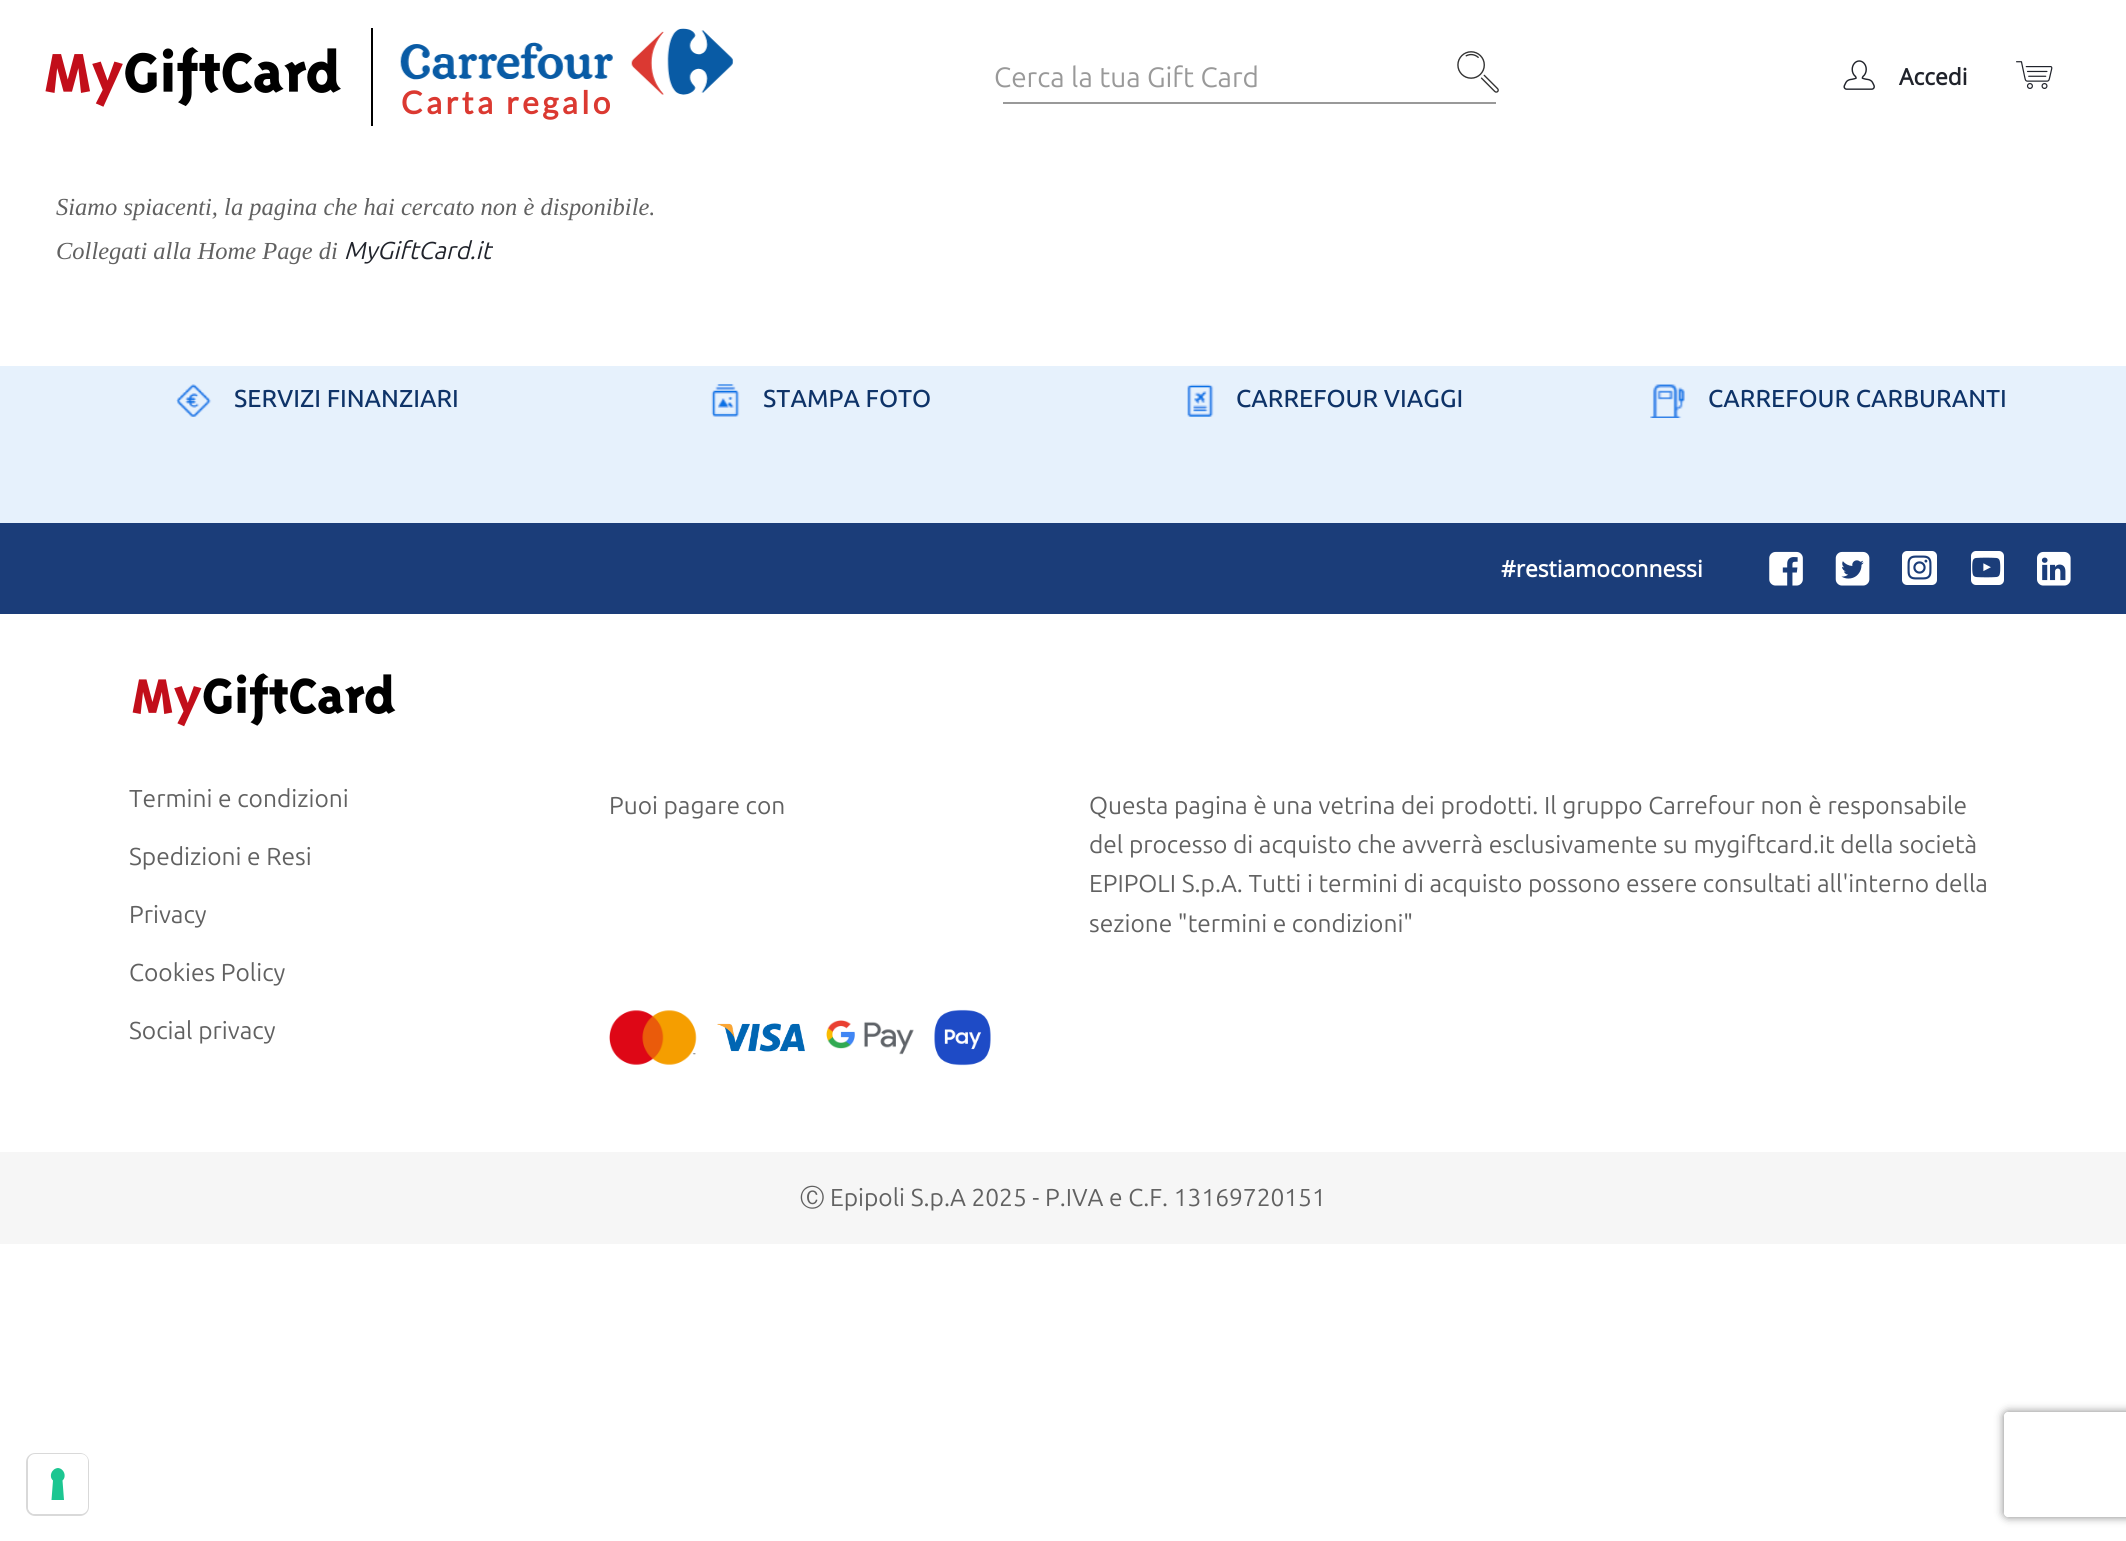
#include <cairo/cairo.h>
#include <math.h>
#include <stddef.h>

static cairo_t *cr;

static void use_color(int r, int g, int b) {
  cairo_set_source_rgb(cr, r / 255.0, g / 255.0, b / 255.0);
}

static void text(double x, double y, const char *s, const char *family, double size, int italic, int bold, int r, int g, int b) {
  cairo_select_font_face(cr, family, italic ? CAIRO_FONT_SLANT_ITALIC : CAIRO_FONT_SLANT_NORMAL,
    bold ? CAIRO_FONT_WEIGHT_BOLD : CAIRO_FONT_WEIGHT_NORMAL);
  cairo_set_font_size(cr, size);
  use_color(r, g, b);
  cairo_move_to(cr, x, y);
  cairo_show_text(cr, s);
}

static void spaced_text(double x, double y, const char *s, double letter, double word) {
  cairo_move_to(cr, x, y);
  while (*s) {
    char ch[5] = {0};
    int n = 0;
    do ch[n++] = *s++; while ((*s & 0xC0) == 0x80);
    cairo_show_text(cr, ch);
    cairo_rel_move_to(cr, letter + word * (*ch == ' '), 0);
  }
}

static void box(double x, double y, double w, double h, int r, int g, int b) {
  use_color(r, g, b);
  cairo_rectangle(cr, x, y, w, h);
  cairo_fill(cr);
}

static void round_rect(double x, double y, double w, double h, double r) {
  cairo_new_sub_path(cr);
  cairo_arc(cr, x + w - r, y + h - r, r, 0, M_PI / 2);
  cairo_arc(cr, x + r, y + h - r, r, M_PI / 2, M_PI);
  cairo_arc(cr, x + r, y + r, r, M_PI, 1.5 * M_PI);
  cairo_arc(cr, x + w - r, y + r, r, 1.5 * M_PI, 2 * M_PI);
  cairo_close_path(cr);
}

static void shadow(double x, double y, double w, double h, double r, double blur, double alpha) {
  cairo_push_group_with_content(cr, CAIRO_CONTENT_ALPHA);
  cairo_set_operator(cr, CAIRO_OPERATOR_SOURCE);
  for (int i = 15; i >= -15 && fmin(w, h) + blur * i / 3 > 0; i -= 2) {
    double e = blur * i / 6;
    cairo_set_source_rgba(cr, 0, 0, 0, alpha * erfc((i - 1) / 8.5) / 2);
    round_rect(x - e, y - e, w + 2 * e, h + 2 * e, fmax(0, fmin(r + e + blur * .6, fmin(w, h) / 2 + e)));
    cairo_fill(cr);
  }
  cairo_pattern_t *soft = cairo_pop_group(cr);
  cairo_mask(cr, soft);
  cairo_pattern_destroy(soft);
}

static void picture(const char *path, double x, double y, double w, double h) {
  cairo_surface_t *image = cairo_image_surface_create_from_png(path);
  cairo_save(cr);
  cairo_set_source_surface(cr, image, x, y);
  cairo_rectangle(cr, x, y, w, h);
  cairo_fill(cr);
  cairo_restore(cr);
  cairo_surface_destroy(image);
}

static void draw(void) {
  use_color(255, 255, 255);
  cairo_paint(cr);
  box(1003, 102, 493, 2, 153, 153, 153);
  picture("img_01.png", 1457, 51, 42, 42);
  picture("img_02.png", 1843, 60, 32, 30);
  picture("img_03.png", 2016, 61, 37, 28);
  picture("img_04.png", 45, 47, 296, 60);
  box(371, 28, 2, 98, 0, 0, 0);
  picture("img_05.png", 400, 28, 334, 67);
  box(0, 366, 2126, 157, 230, 241, 252);
  picture("img_06.png", 176, 384, 36, 33);
  picture("img_07.png", 711, 384, 29, 33);
  picture("img_08.png", 1187, 384, 27, 33);
  picture("img_09.png", 1650, 384, 35, 34);
  box(0, 523, 2126, 91, 27, 61, 121);
  picture("img_10.png", 1769, 551, 34, 35);
  picture("img_11.png", 1835, 551, 35, 35);
  use_color(255, 255, 255);
  round_rect(1902, 551, 35, 34, 5);
  cairo_fill(cr);
  picture("img_12.png", 1907, 555, 25, 25);
  round_rect(1971, 551, 33, 34, 5);
  cairo_fill(cr);
  picture("img_13.png", 1972, 557, 29, 21);
  picture("img_14.png", 2037, 551, 34, 35);
  picture("img_15.png", 132, 673, 264, 54);
  picture("img_16.png", 609, 1010, 88, 55);
  picture("img_17.png", 717, 1023, 88, 29);
  picture("img_18.png", 826, 1020, 88, 35);
  picture("img_19.png", 934, 1009, 57, 57);
  box(0, 1152, 2126, 92, 246, 246, 246);
  round_rect(27, 1454, 61, 61, 8);
  use_color(217, 217, 217);
  cairo_stroke(cr);
  use_color(255, 255, 255);
  round_rect(28, 1454, 60, 60, 7);
  cairo_fill(cr);
  use_color(28, 198, 145);
  cairo_set_fill_rule(cr, CAIRO_FILL_RULE_EVEN_ODD);
  cairo_new_path(cr);
  cairo_move_to(cr, 58, 1468);
  cairo_curve_to(cr, 64, 1468.5, 67, 1476.5, 62.5, 1480.5);
  cairo_line_to(cr, 64, 1500);
  cairo_line_to(cr, 51.5, 1500);
  cairo_line_to(cr, 53, 1480.5);
  cairo_curve_to(cr, 48.5, 1476.5, 51.5, 1468.5, 58, 1468);
  cairo_close_path(cr);
  cairo_fill(cr);
  cairo_save(cr);
  cairo_new_path(cr);
  cairo_move_to(cr, 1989, 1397);
  cairo_line_to(cr, 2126, 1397);
  cairo_line_to(cr, 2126, 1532);
  cairo_line_to(cr, 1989, 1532);
  cairo_close_path(cr);
  cairo_move_to(cr, 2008, 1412);
  cairo_line_to(cr, 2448, 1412);
  cairo_curve_to(cr, 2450, 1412, 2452, 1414, 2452, 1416);
  cairo_line_to(cr, 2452, 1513);
  cairo_curve_to(cr, 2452, 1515, 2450, 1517, 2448, 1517);
  cairo_line_to(cr, 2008, 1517);
  cairo_curve_to(cr, 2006, 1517, 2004, 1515, 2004, 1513);
  cairo_line_to(cr, 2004, 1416);
  cairo_curve_to(cr, 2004, 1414, 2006, 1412, 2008, 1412);
  cairo_close_path(cr);
  cairo_clip(cr);
  use_color(128, 128, 128);
  shadow(2004, 1412, 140, 105, 4, 4.5, 1);
  cairo_restore(cr);
  text(994, 87, "Cerca la tua Gift Card", "Ubuntu", 28, 0, 0, 153, 153, 153);
  text(1899, 85, "Accedi", "Open Sans", 22.75, 0, 1, 32, 35, 43);
  cairo_select_font_face(cr, "Lato", CAIRO_FONT_SLANT_NORMAL, CAIRO_FONT_WEIGHT_BOLD);
  cairo_set_font_size(cr, 31.5);
  use_color(219, 57, 49);
  spaced_text(401, 114, "Carta regalo", 3.5, 0);
  text(56, 215, "Siamo spiacenti, la pagina che hai cercato non è disponibile.", "Liberation Serif", 24.5, 1, 0, 97, 97, 97);
  text(56, 259, "Collegati alla Home Page di", "Liberation Serif", 24.5, 1, 0, 97, 97, 97);
  text(344, 259, "MyGiftCard.it", "Ubuntu", 24.5, 1, 0, 32, 35, 43);
  text(234, 407, "SERVIZI FINANZIARI", "Ubuntu Medium", 24.5, 0, 0, 14, 51, 104);
  text(763, 407, "STAMPA FOTO", "Ubuntu Medium", 24.5, 0, 0, 14, 51, 104);
  text(1236, 407, "CARREFOUR VIAGGI", "Ubuntu Medium", 24.5, 0, 0, 14, 51, 104);
  text(1708, 407, "CARREFOUR CARBURANTI", "Ubuntu Medium", 24.5, 0, 0, 14, 51, 104);
  text(1501, 577, "#restiamoconnessi", "Open Sans", 22.75, 0, 1, 255, 255, 255);
  text(129, 807, "Termini e condizioni", "Ubuntu", 24.5, 0, 0, 97, 97, 97);
  text(129, 865, "Spedizioni e Resi", "Ubuntu", 24.5, 0, 0, 97, 97, 97);
  text(129, 923, "Privacy", "Ubuntu", 24.5, 0, 0, 97, 97, 97);
  text(129, 981, "Cookies Policy", "Ubuntu", 24.5, 0, 0, 97, 97, 97);
  text(129, 1039, "Social privacy", "Ubuntu", 24.5, 0, 0, 97, 97, 97);
  text(609, 814, "Puoi pagare con", "Ubuntu", 24.5, 0, 0, 97, 97, 97);
  text(1089, 814, "Questa pagina è una vetrina dei prodotti. Il gruppo Carrefour non è responsabile", "Ubuntu", 24.5, 0, 0, 97, 97, 97);
  text(1089, 853, "del processo di acquisto che avverrà esclusivamente su mygiftcard.it della società", "Ubuntu", 24.5, 0, 0, 97, 97, 97);
  text(1089, 892, "EPIPOLI S.p.A. Tutti i termini di acquisto possono essere consultati all'interno della", "Ubuntu", 24.5, 0, 0, 97, 97, 97);
  text(1089, 932, "sezione \"termini e condizioni\"", "Ubuntu", 24.5, 0, 0, 97, 97, 97);
  text(800, 1206, "Ⓒ", "WenQuanYi Zen Hei Medium", 24.5, 0, 0, 97, 97, 97);
  text(830, 1206, "Epipoli S.p.A 2025 - P.IVA e C.F. 13169720151", "Ubuntu", 24.5, 0, 0, 97, 97, 97);
}

int main(void) {
  cairo_surface_t *surface = cairo_image_surface_create(CAIRO_FORMAT_RGB24, 2126, 1541);
  cr = cairo_create(surface);
  cairo_font_options_t *options = cairo_font_options_create();
  cairo_font_options_set_hint_metrics(options, CAIRO_HINT_METRICS_OFF);
  cairo_font_options_set_hint_style(options, CAIRO_HINT_STYLE_NONE);
  cairo_set_font_options(cr, options);
  cairo_set_miter_limit(cr, 4);
  draw();
  cairo_surface_write_to_png(surface, "out.png");
  cairo_font_options_destroy(options);
  cairo_destroy(cr);
  cairo_surface_destroy(surface);
  return 0;
}
